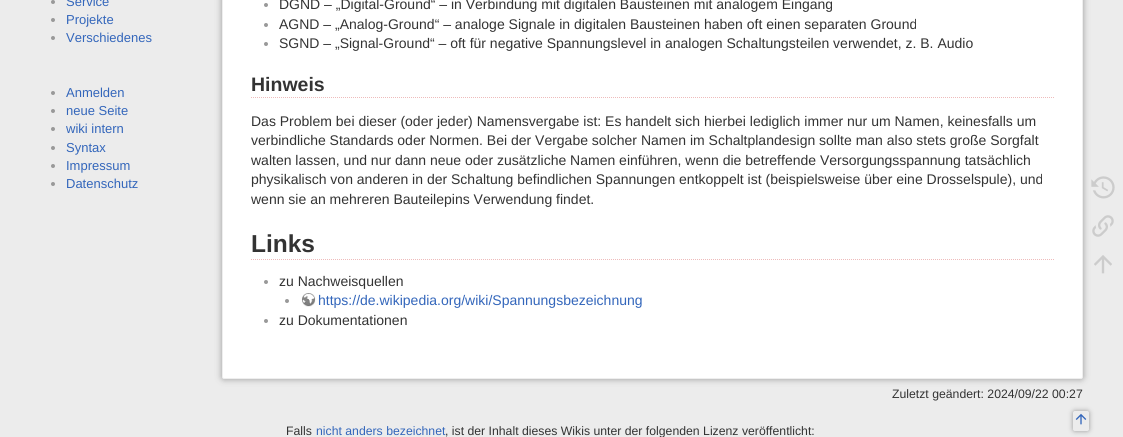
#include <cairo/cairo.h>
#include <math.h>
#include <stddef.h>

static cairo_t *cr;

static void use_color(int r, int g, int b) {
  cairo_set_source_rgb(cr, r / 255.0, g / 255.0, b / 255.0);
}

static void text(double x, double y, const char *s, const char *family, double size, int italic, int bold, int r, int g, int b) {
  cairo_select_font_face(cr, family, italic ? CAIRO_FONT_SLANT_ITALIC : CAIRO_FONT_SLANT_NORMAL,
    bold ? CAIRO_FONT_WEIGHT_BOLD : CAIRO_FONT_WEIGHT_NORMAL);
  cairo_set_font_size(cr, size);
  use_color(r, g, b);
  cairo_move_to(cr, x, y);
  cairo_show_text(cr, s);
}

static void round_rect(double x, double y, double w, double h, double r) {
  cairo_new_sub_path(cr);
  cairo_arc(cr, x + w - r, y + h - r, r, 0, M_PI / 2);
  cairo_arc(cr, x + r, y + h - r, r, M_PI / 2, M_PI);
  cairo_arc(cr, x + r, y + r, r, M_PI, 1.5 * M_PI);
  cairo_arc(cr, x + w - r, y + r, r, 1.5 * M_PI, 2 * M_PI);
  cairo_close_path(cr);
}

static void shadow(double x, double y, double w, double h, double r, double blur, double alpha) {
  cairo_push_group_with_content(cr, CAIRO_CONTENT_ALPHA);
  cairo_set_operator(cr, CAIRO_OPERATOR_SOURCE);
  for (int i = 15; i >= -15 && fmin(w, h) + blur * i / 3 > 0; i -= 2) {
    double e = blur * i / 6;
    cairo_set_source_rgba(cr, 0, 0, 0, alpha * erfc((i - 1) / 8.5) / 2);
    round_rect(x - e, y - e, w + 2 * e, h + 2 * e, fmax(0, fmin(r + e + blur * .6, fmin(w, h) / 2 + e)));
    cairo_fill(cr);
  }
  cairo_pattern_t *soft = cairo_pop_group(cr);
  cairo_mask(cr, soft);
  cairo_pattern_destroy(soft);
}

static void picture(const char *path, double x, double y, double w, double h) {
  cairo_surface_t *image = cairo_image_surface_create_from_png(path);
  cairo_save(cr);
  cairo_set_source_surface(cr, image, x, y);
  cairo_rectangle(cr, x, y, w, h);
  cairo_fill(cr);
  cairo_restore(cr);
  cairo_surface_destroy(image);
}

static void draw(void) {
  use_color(236, 236, 236);
  cairo_paint(cr);
  use_color(153, 153, 153);
  cairo_arc(cr, 53, 2, 2, 0, 2 * M_PI);
  cairo_fill(cr);
  cairo_arc(cr, 53, 20, 2, 0, 2 * M_PI);
  cairo_fill(cr);
  cairo_arc(cr, 53, 38, 2, 0, 2 * M_PI);
  cairo_fill(cr);
  cairo_arc(cr, 53, 93, 2, 0, 2 * M_PI);
  cairo_fill(cr);
  cairo_arc(cr, 53, 111, 2, 0, 2 * M_PI);
  cairo_fill(cr);
  cairo_arc(cr, 53, 129, 2, 0, 2 * M_PI);
  cairo_fill(cr);
  cairo_arc(cr, 53, 148, 2, 0, 2 * M_PI);
  cairo_fill(cr);
  cairo_arc(cr, 53, 166, 2, 0, 2 * M_PI);
  cairo_fill(cr);
  cairo_arc(cr, 53, 184, 2, 0, 2 * M_PI);
  cairo_fill(cr);
  use_color(153, 153, 153);
  shadow(222, -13, 861, 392, 2, 3.5, 1);
  use_color(255, 255, 255);
  round_rect(222.5, -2.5, 860, 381, 1.5);
  cairo_fill_preserve(cr);
  use_color(238, 238, 238);
  cairo_set_line_width(cr, 1);
  cairo_stroke(cr);
  use_color(153, 153, 153);
  cairo_arc(cr, 266, 5, 2, 0, 2 * M_PI);
  cairo_fill(cr);
  cairo_arc(cr, 266, 25, 2, 0, 2 * M_PI);
  cairo_fill(cr);
  cairo_arc(cr, 266, 44, 2, 0, 2 * M_PI);
  cairo_fill(cr);
  cairo_new_path(cr);
  cairo_move_to(cr, 251, 97.5);
  cairo_line_to(cr, 1054, 97.5);
  use_color(238, 187, 187);
  cairo_set_dash(cr, (double[]){1, 1}, 2, 0);
  cairo_stroke(cr);
  cairo_new_path(cr);
  cairo_move_to(cr, 251, 259.5);
  cairo_line_to(cr, 1054, 259.5);
  cairo_stroke(cr);
  use_color(153, 153, 153);
  cairo_arc(cr, 266, 282, 2, 0, 2 * M_PI);
  cairo_fill(cr);
  cairo_arc(cr, 287, 301, 2, 0, 2 * M_PI);
  cairo_fill(cr);
  picture("img_01.png", 302, 293, 14, 14);
  cairo_arc(cr, 266, 321, 2, 0, 2 * M_PI);
  cairo_fill(cr);
  picture("img_02.png", 1091, 176, 24, 23);
  picture("img_03.png", 1092, 215, 22, 22);
  picture("img_04.png", 1094, 255, 18, 19);
  cairo_save(cr);
  cairo_set_fill_rule(cr, CAIRO_FILL_RULE_EVEN_ODD);
  cairo_new_path(cr);
  cairo_move_to(cr, 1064, 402);
  cairo_line_to(cr, 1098, 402);
  cairo_line_to(cr, 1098, 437);
  cairo_line_to(cr, 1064, 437);
  cairo_close_path(cr);
  cairo_move_to(cr, 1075, 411);
  cairo_line_to(cr, 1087, 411);
  cairo_curve_to(cr, 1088, 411, 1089, 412, 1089, 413);
  cairo_line_to(cr, 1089, 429);
  cairo_curve_to(cr, 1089, 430, 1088, 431, 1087, 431);
  cairo_line_to(cr, 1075, 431);
  cairo_curve_to(cr, 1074, 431, 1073, 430, 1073, 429);
  cairo_line_to(cr, 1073, 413);
  cairo_curve_to(cr, 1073, 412, 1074, 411, 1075, 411);
  cairo_close_path(cr);
  cairo_clip(cr);
  use_color(153, 153, 153);
  shadow(1073, 411, 16, 20, 2, 2.5, 1);
  cairo_restore(cr);
  picture("img_05.png", 1075, 413, 12, 12);
  text(66, 6, "Service", "Liberation Sans", 13, 0, 0, 51, 102, 187);
  text(66, 24, "Projekte", "Liberation Sans", 13, 0, 0, 51, 102, 187);
  text(66, 42, "Verschiedenes", "Liberation Sans", 13, 0, 0, 51, 102, 187);
  text(66, 97, "Anmelden", "Liberation Sans", 13, 0, 0, 51, 102, 187);
  text(66, 115, "neue Seite", "Liberation Sans", 13, 0, 0, 51, 102, 187);
  text(66, 133, "wiki intern", "Liberation Sans", 13, 0, 0, 51, 102, 187);
  text(66, 152, "Syntax", "Liberation Sans", 13, 0, 0, 51, 102, 187);
  text(66, 170, "Impressum", "Liberation Sans", 13, 0, 0, 51, 102, 187);
  text(66, 188, "Datenschutz", "Liberation Sans", 13, 0, 0, 51, 102, 187);
  text(279, 9, "DGND – „Digital-Ground“ – in Verbindung mit digitalen Bausteinen mit analogem Eingang", "Liberation Sans", 14, 0, 0, 51, 51, 51);
  text(279, 29, "AGND – „Analog-Ground“ – analoge Signale in digitalen Bausteinen haben oft einen separaten Ground", "Liberation Sans", 14, 0, 0, 51, 51, 51);
  text(279, 48, "SGND – „Signal-Ground“ – oft für negative Spannungslevel in analogen Schaltungsteilen verwendet, z. B. Audio", "Liberation Sans", 14, 0, 0, 51, 51, 51);
  text(251, 91, "Hinweis", "Liberation Sans", 19.5, 0, 1, 51, 51, 51);
  text(251, 126, "Das Problem bei dieser (oder jeder) Namensvergabe ist: Es handelt sich hierbei lediglich immer nur um Namen, keinesfalls um", "Liberation Sans", 14, 0, 0, 51, 51, 51);
  text(251, 145, "verbindliche Standards oder Normen. Bei der Vergabe solcher Namen im Schaltplandesign sollte man also stets große Sorgfalt", "Liberation Sans", 14, 0, 0, 51, 51, 51);
  text(251, 165, "walten lassen, und nur dann neue oder zusätzliche Namen einführen, wenn die betreffende Versorgungsspannung tatsächlich", "Liberation Sans", 14, 0, 0, 51, 51, 51);
  text(251, 184, "physikalisch von anderen in der Schaltung befindlichen Spannungen entkoppelt ist (beispielsweise über eine Drosselspule), und", "Liberation Sans", 14, 0, 0, 51, 51, 51);
  text(251, 204, "wenn sie an mehreren Bauteilepins Verwendung findet.", "Liberation Sans", 14, 0, 0, 51, 51, 51);
  text(251, 252, "Links", "Liberation Sans", 24.5, 0, 1, 51, 51, 51);
  text(279, 286, "zu Nachweisquellen", "Liberation Sans", 14, 0, 0, 51, 51, 51);
  text(318, 305, "https://de.wikipedia.org/wiki/Spannungsbezeichnung", "Liberation Sans", 14, 0, 0, 51, 102, 187);
  text(279, 325, "zu Dokumentationen", "Liberation Sans", 14, 0, 0, 51, 51, 51);
  text(892, 398, "Zuletzt geändert: 2024/09/22 00:27", "Liberation Sans", 12.25, 0, 0, 51, 51, 51);
  text(286, 435, "Falls", "Liberation Sans", 12.25, 0, 0, 51, 51, 51);
  text(316, 435, "nicht anders bezeichnet", "Liberation Sans", 12.25, 0, 0, 51, 102, 187);
  text(445, 435, ", ist der Inhalt dieses Wikis unter der folgenden Lizenz veröffentlicht:", "Liberation Sans", 12.25, 0, 0, 51, 51, 51);
}

int main(void) {
  cairo_surface_t *surface = cairo_image_surface_create(CAIRO_FORMAT_RGB24, 1123, 437);
  cr = cairo_create(surface);
  cairo_font_options_t *options = cairo_font_options_create();
  cairo_font_options_set_hint_metrics(options, CAIRO_HINT_METRICS_OFF);
  cairo_font_options_set_hint_style(options, CAIRO_HINT_STYLE_NONE);
  cairo_set_font_options(cr, options);
  cairo_set_miter_limit(cr, 4);
  draw();
  cairo_surface_write_to_png(surface, "out.png");
  cairo_font_options_destroy(options);
  cairo_destroy(cr);
  cairo_surface_destroy(surface);
  return 0;
}
